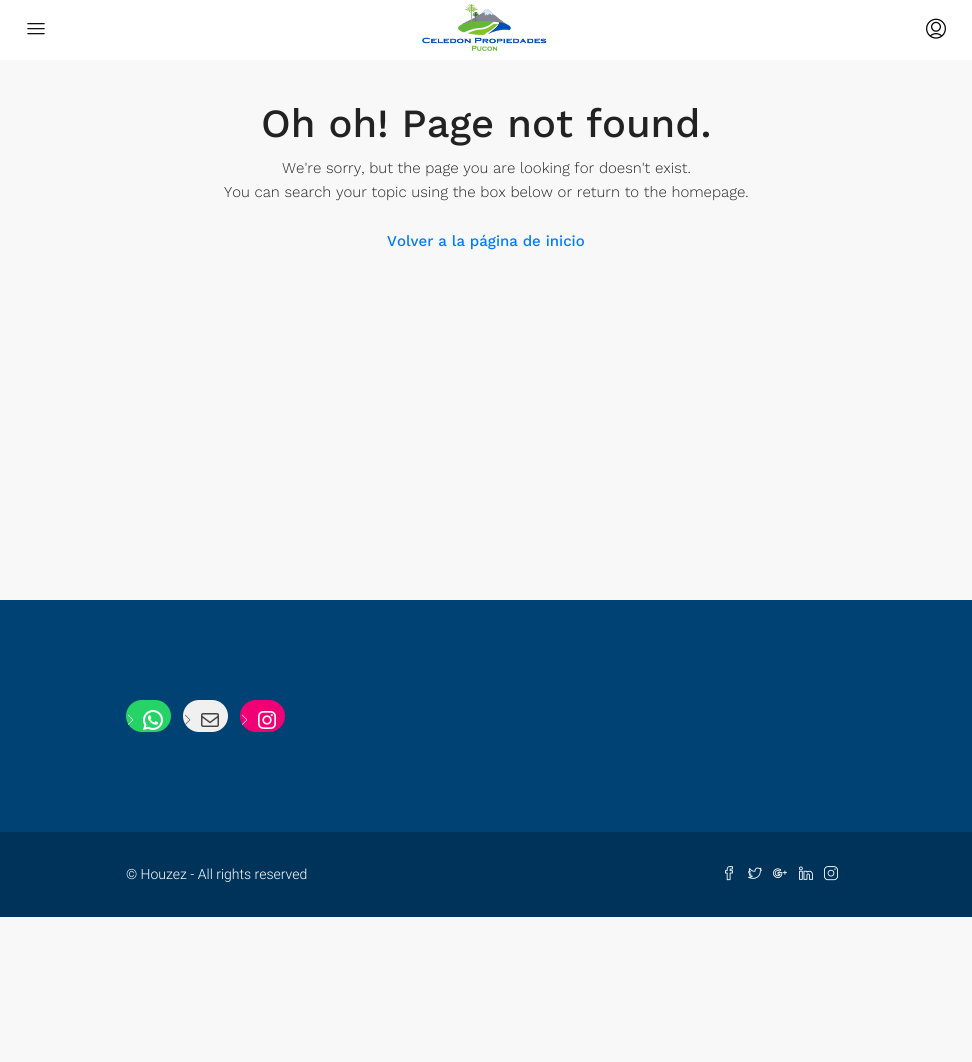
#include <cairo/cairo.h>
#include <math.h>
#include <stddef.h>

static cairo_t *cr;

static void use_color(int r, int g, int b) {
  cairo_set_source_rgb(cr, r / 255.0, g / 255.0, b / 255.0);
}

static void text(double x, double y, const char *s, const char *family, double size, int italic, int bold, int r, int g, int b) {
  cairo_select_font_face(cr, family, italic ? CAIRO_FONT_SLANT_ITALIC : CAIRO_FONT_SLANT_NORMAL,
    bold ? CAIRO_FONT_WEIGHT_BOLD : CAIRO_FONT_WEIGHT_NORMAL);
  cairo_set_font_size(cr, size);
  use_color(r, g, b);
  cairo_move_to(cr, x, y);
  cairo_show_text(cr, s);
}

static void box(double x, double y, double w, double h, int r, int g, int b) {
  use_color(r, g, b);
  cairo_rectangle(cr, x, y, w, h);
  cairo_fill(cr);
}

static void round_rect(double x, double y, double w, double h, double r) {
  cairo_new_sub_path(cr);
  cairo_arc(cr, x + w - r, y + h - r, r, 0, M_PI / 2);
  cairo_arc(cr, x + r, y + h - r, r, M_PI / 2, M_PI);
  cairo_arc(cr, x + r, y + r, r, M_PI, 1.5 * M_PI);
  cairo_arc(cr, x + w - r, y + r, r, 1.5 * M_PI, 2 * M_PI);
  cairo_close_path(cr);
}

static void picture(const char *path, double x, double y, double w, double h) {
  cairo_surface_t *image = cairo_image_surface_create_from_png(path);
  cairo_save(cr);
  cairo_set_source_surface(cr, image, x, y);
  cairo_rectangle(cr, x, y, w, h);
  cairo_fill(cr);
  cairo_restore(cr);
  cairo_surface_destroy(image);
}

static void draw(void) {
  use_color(248, 248, 248);
  cairo_paint(cr);
  box(0, 0, 972, 60, 255, 255, 255);
  picture("img_01.png", 27, 23, 18, 12);
  picture("img_02.png", 422, 4, 125, 47);
  picture("img_03.png", 926, 18, 20, 21);
  box(0, 600, 972, 232, 0, 66, 116);
  use_color(37, 211, 102);
  round_rect(126, 700, 45, 32, 16);
  cairo_fill(cr);
  picture("img_04.png", 128, 714, 6, 11);
  picture("img_05.png", 143, 710, 20, 20);
  use_color(240, 240, 240);
  round_rect(183, 700, 45, 32, 16);
  cairo_fill(cr);
  picture("img_06.png", 185, 714, 6, 11);
  picture("img_07.png", 201, 713, 18, 14);
  use_color(240, 0, 117);
  round_rect(240, 700, 45, 32, 16);
  cairo_fill(cr);
  picture("img_08.png", 242, 714, 6, 11);
  picture("img_09.png", 258, 711, 18, 18);
  box(0, 832, 972, 85, 0, 51, 90);
  picture("img_10.png", 725, 866, 8, 15);
  picture("img_11.png", 748, 867, 14, 12);
  picture("img_12.png", 773, 868, 14, 10);
  picture("img_13.png", 799, 866, 14, 14);
  picture("img_14.png", 824, 866, 14, 15);
  text(261, 137, "Oh oh! Page not found.", "Work Sans Medium", 40, 0, 0, 34, 34, 34);
  text(282, 173, "We're sorry, but the page you are looking for doesn't exist.", "Work Sans Light", 15, 0, 0, 34, 34, 34);
  text(224, 197, "You can search your topic using the box below or return to the homepage.", "Work Sans Light", 15, 0, 0, 34, 34, 34);
  text(387, 246, "Volver a la página de inicio", "Work Sans Medium", 15, 0, 0, 0, 123, 255);
  text(126, 879, "© Houzez - All rights reserved", "Roboto Light", 14, 0, 0, 255, 255, 255);
}

int main(void) {
  cairo_surface_t *surface = cairo_image_surface_create(CAIRO_FORMAT_RGB24, 972, 1062);
  cr = cairo_create(surface);
  cairo_font_options_t *options = cairo_font_options_create();
  cairo_font_options_set_hint_metrics(options, CAIRO_HINT_METRICS_OFF);
  cairo_font_options_set_hint_style(options, CAIRO_HINT_STYLE_NONE);
  cairo_set_font_options(cr, options);
  cairo_set_miter_limit(cr, 4);
  draw();
  cairo_surface_write_to_png(surface, "out.png");
  cairo_font_options_destroy(options);
  cairo_destroy(cr);
  cairo_surface_destroy(surface);
  return 0;
}
